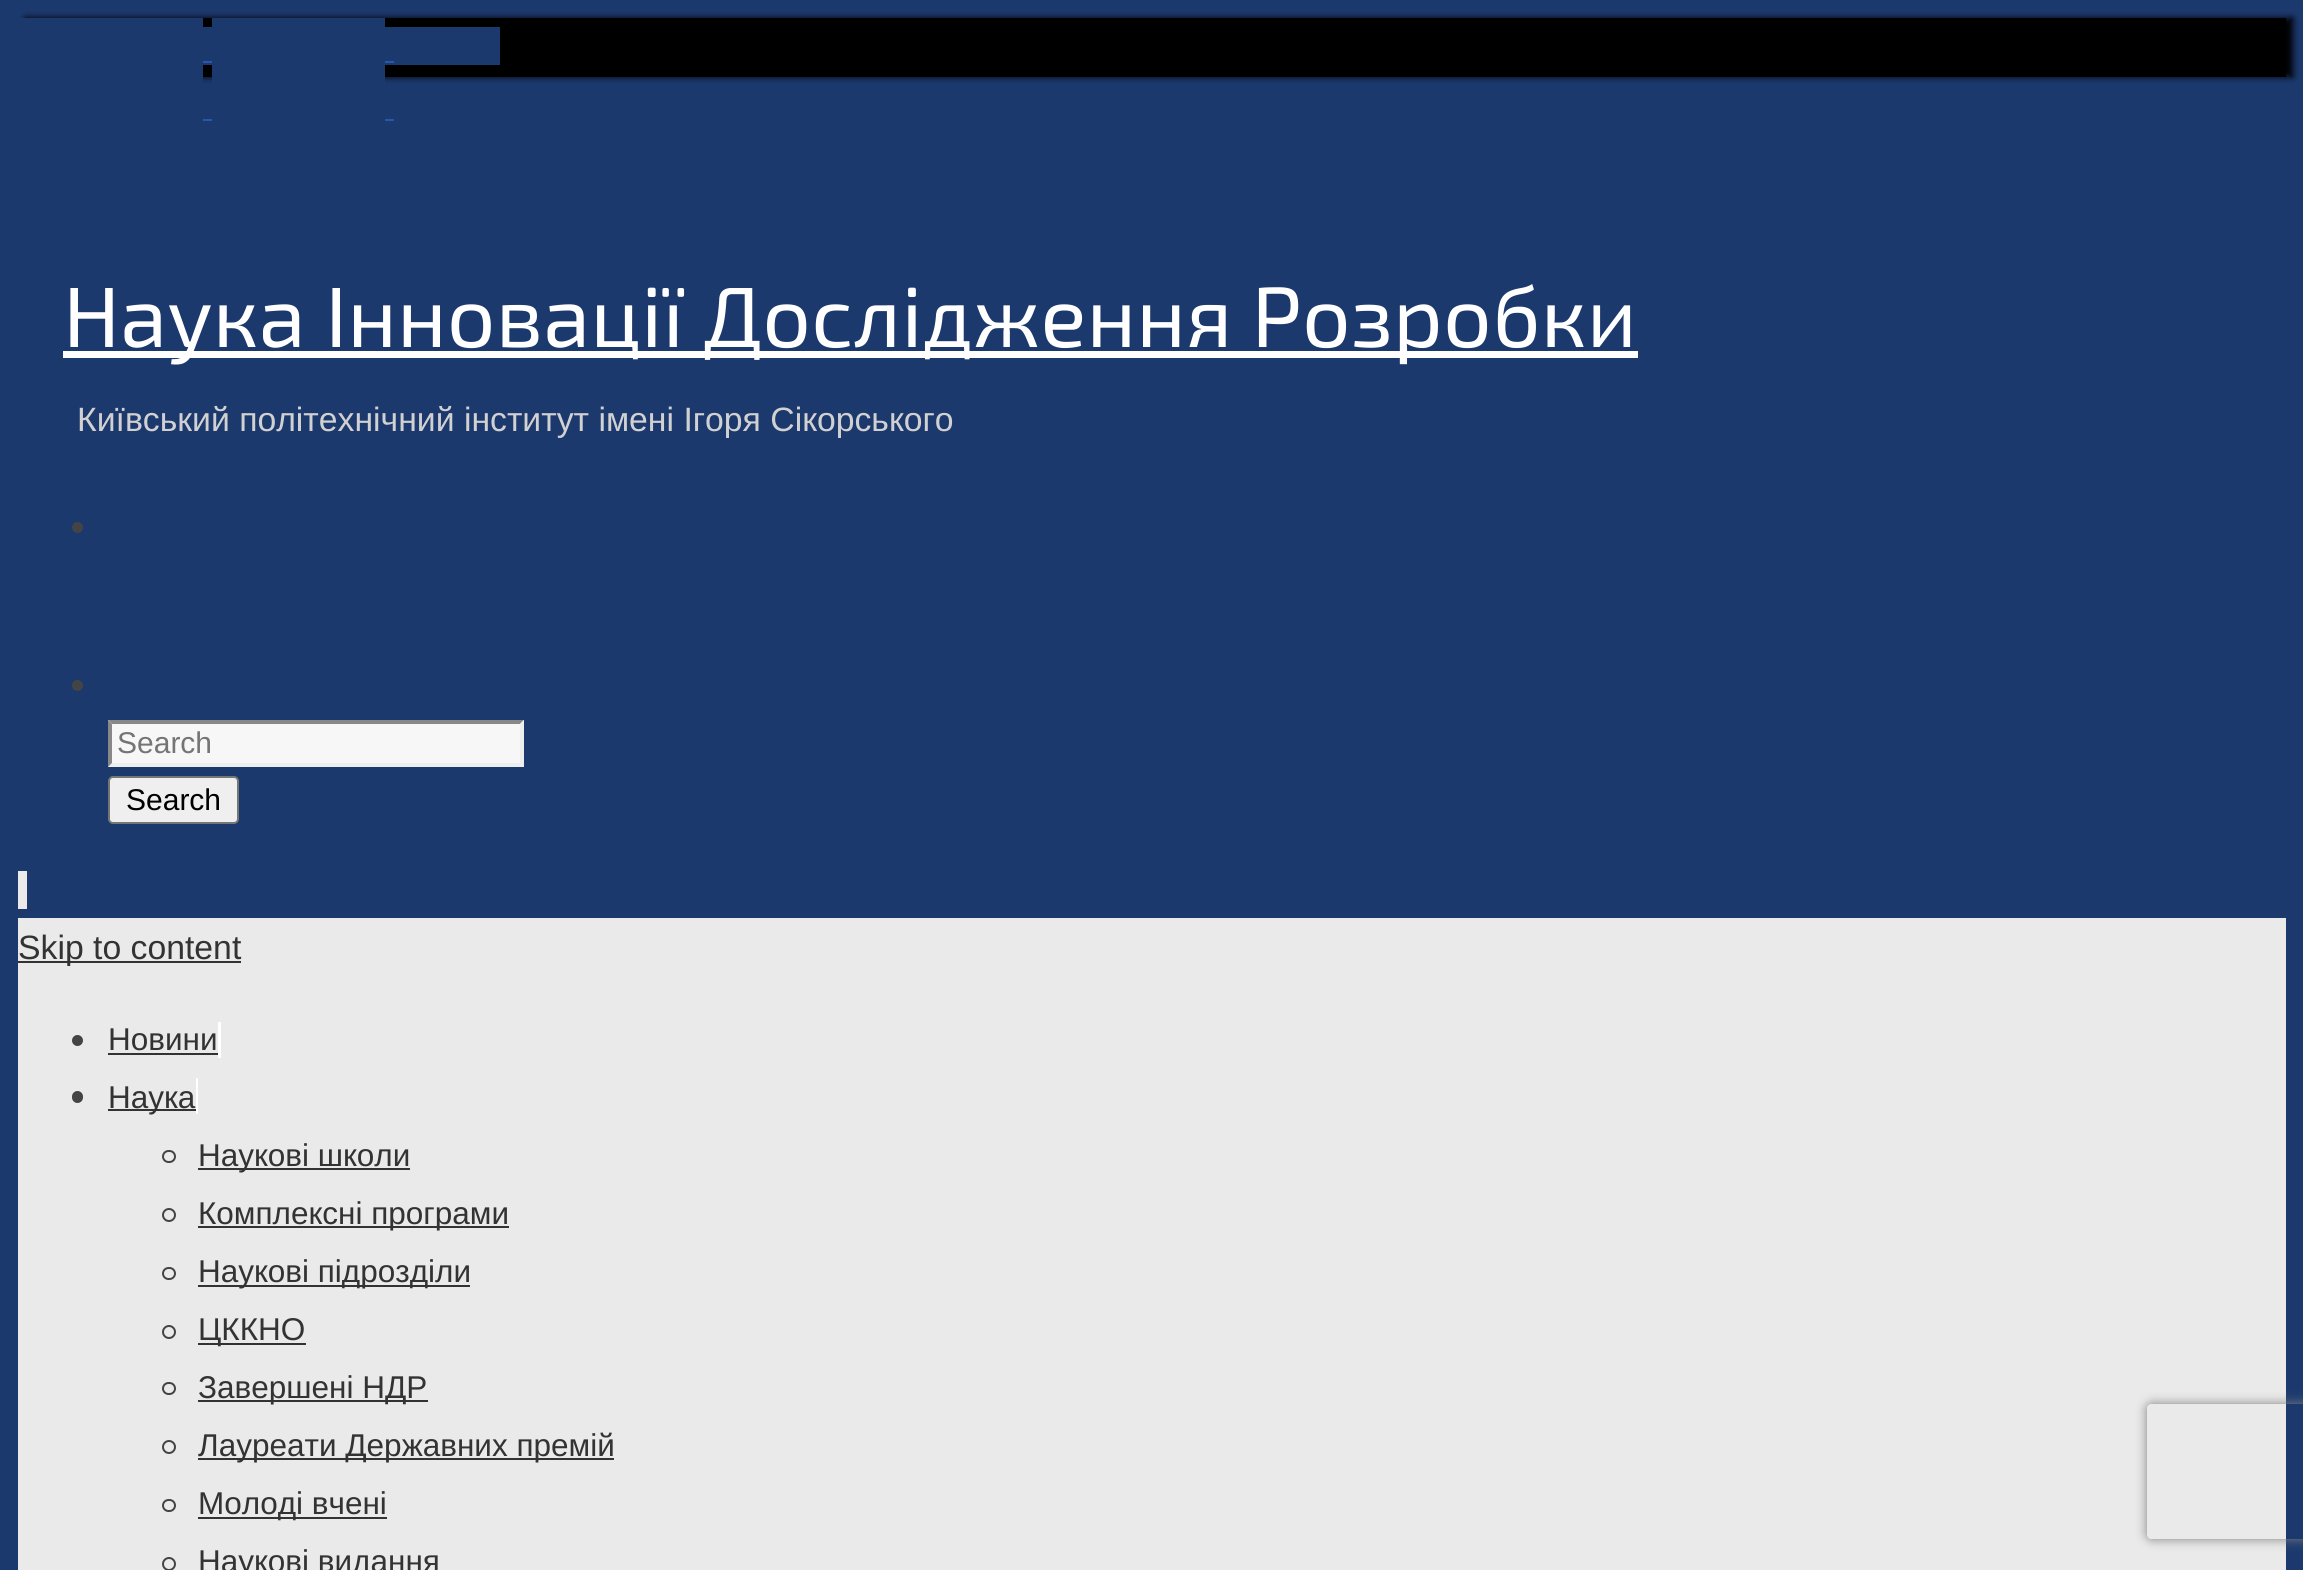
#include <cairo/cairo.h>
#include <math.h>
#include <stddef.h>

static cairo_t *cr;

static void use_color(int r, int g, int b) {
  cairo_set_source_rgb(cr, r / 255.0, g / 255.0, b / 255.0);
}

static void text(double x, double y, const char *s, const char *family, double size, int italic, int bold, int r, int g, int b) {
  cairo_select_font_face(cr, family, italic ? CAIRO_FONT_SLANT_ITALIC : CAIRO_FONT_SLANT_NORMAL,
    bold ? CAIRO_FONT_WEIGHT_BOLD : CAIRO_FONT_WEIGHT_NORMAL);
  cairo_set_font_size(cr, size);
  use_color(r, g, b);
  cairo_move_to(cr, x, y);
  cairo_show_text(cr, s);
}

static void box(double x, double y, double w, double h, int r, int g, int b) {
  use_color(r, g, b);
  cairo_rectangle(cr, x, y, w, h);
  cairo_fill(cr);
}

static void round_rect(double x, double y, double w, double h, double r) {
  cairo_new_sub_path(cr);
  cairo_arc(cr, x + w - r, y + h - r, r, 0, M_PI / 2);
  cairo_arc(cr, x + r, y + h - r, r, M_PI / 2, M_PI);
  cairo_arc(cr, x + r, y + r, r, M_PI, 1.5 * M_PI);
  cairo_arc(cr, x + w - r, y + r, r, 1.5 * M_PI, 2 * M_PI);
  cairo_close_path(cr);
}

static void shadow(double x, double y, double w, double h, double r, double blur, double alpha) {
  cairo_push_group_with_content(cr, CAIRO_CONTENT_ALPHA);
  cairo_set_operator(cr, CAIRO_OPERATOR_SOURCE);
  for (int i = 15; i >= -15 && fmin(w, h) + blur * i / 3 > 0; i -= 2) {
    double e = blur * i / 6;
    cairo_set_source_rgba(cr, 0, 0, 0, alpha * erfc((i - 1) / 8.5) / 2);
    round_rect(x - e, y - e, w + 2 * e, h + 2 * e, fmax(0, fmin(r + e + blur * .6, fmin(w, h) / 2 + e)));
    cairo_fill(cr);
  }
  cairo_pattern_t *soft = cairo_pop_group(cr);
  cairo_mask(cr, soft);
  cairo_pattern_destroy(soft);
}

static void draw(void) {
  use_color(28, 57, 110);
  cairo_paint(cr);
  use_color(0, 0, 0);
  shadow(25, 18, 2268, 59, 0, 3.5, 1);
  box(203, 18, 2083, 59, 0, 0, 0);
  box(18, 18, 185, 59, 28, 57, 110);
  box(203, 27, 9, 38, 28, 57, 110);
  box(212, 18, 173, 66, 28, 57, 110);
  box(385, 27, 115, 38, 28, 57, 110);
  box(203, 61, 9, 2, 41, 87, 172);
  box(385, 61, 9, 2, 41, 87, 172);
  box(19, 77, 184, 7, 28, 57, 110);
  box(203, 119, 9, 2, 41, 87, 172);
  box(385, 119, 9, 2, 41, 87, 172);
  box(63, 351, 1575, 7, 255, 255, 255);
  use_color(68, 68, 68);
  cairo_arc(cr, 77.5, 527.5, 5.5, 0, 2 * M_PI);
  cairo_fill(cr);
  cairo_arc(cr, 77.5, 685.5, 5.5, 0, 2 * M_PI);
  cairo_fill(cr);
  box(108, 720, 416, 47, 247, 247, 247);
  use_color(136, 136, 136);
  cairo_new_path(cr);
  cairo_move_to(cr, 108, 720);
  cairo_line_to(cr, 524, 720);
  cairo_line_to(cr, 520, 724);
  cairo_line_to(cr, 112, 724);
  cairo_close_path(cr);
  cairo_fill(cr);
  use_color(238, 238, 238);
  cairo_new_path(cr);
  cairo_move_to(cr, 524, 720);
  cairo_line_to(cr, 524, 767);
  cairo_line_to(cr, 520, 763);
  cairo_line_to(cr, 520, 724);
  cairo_close_path(cr);
  cairo_fill(cr);
  cairo_new_path(cr);
  cairo_move_to(cr, 524, 767);
  cairo_line_to(cr, 108, 767);
  cairo_line_to(cr, 112, 763);
  cairo_line_to(cr, 520, 763);
  cairo_close_path(cr);
  cairo_fill(cr);
  use_color(136, 136, 136);
  cairo_new_path(cr);
  cairo_move_to(cr, 108, 767);
  cairo_line_to(cr, 108, 720);
  cairo_line_to(cr, 112, 724);
  cairo_line_to(cr, 112, 763);
  cairo_close_path(cr);
  cairo_fill(cr);
  use_color(239, 239, 239);
  round_rect(109, 777, 129, 46, 4);
  cairo_fill_preserve(cr);
  use_color(118, 118, 118);
  cairo_stroke(cr);
  box(18, 871, 9, 38, 234, 234, 234);
  box(18, 918, 2268, 652, 234, 234, 234);
  box(18, 961, 223, 2, 51, 51, 51);
  use_color(68, 68, 68);
  cairo_arc(cr, 77.5, 1040.5, 5.5, 0, 2 * M_PI);
  cairo_fill(cr);
  use_color(255, 255, 255);
  cairo_new_path(cr);
  cairo_move_to(cr, 110, 1058);
  cairo_line_to(cr, 221, 1058);
  cairo_line_to(cr, 221, 1022);
  cairo_line_to(cr, 218, 1022);
  cairo_line_to(cr, 218, 1058);
  cairo_close_path(cr);
  cairo_fill(cr);
  box(108, 1053, 110, 2, 51, 51, 51);
  use_color(68, 68, 68);
  round_rect(72, 1091, 11, 12, 5.5);
  cairo_fill(cr);
  use_color(255, 255, 255);
  cairo_new_path(cr);
  cairo_move_to(cr, 110, 1114);
  cairo_line_to(cr, 198, 1114);
  cairo_line_to(cr, 198, 1078);
  cairo_line_to(cr, 196, 1078);
  cairo_line_to(cr, 196, 1114);
  cairo_close_path(cr);
  cairo_fill(cr);
  box(108, 1109, 88, 2, 51, 51, 51);
  round_rect(163, 1151, 12, 11, 5.5);
  use_color(68, 68, 68);
  cairo_stroke(cr);
  box(198, 1168, 212, 2, 51, 51, 51);
  cairo_arc(cr, 169, 1215, 6, 0, 2 * M_PI);
  use_color(68, 68, 68);
  cairo_stroke(cr);
  box(198, 1226, 311, 2, 51, 51, 51);
  round_rect(163, 1268, 12, 11, 5.5);
  use_color(68, 68, 68);
  cairo_stroke(cr);
  box(198, 1285, 272, 2, 51, 51, 51);
  cairo_arc(cr, 169, 1332, 6, 0, 2 * M_PI);
  use_color(68, 68, 68);
  cairo_stroke(cr);
  box(198, 1343, 108, 2, 51, 51, 51);
  round_rect(163, 1383, 12, 11, 5.5);
  use_color(68, 68, 68);
  cairo_stroke(cr);
  box(198, 1400, 230, 2, 51, 51, 51);
  cairo_arc(cr, 169, 1447, 6, 0, 2 * M_PI);
  use_color(68, 68, 68);
  cairo_stroke(cr);
  box(198, 1458, 416, 2, 51, 51, 51);
  round_rect(163, 1500, 12, 11, 5.5);
  use_color(68, 68, 68);
  cairo_stroke(cr);
  box(198, 1517, 189, 2, 51, 51, 51);
  cairo_arc(cr, 169, 1564, 6, 0, 2 * M_PI);
  use_color(68, 68, 68);
  cairo_stroke(cr);
  cairo_save(cr);
  cairo_set_fill_rule(cr, CAIRO_FILL_RULE_EVEN_ODD);
  cairo_new_path(cr);
  cairo_move_to(cr, 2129, 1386);
  cairo_line_to(cr, 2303, 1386);
  cairo_line_to(cr, 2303, 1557);
  cairo_line_to(cr, 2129, 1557);
  cairo_close_path(cr);
  cairo_move_to(cr, 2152, 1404);
  cairo_line_to(cr, 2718, 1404);
  cairo_curve_to(cr, 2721, 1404, 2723, 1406, 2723, 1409);
  cairo_line_to(cr, 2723, 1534);
  cairo_curve_to(cr, 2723, 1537, 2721, 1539, 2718, 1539);
  cairo_line_to(cr, 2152, 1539);
  cairo_curve_to(cr, 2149, 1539, 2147, 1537, 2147, 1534);
  cairo_line_to(cr, 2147, 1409);
  cairo_curve_to(cr, 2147, 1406, 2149, 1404, 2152, 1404);
  cairo_close_path(cr);
  cairo_clip(cr);
  use_color(128, 128, 128);
  shadow(2147, 1404, 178, 135, 5, 5.5, 1);
  cairo_restore(cr);
  text(63, 347, "Наука Інновації Дослідження Розробки", "Exo 2", 85.5, 0, 0, 255, 255, 255);
  text(77, 431, "Київський політехнічний інститут імені Ігоря Сікорського", "Liberation Sans", 33.75, 0, 0, 209, 209, 209);
  text(117, 753, "Search", "Liberation Sans", 30, 0, 0, 117, 117, 117);
  text(126, 810, "Search", "Liberation Sans", 30, 0, 0, 0, 0, 0);
  text(18, 959, "Skip to content", "Liberation Sans", 33.75, 0, 0, 51, 51, 51);
  text(108, 1050, "Новини", "Liberation Sans", 31.5, 0, 0, 51, 51, 51);
  text(108, 1108, "Наука", "Liberation Sans", 31.5, 0, 0, 51, 51, 51);
  text(198, 1166, "Наукові школи", "Liberation Sans", 31.5, 0, 0, 51, 51, 51);
  text(198, 1224, "Комплексні програми", "Liberation Sans", 31.5, 0, 0, 51, 51, 51);
  text(198, 1282, "Наукові підрозділи", "Liberation Sans", 31.5, 0, 0, 51, 51, 51);
  text(198, 1340, "ЦККНО", "Liberation Sans", 31.5, 0, 0, 51, 51, 51);
  text(198, 1398, "Завершені НДР", "Liberation Sans", 31.5, 0, 0, 51, 51, 51);
  text(198, 1456, "Лауреати Державних премій", "Liberation Sans", 31.5, 0, 0, 51, 51, 51);
  text(198, 1514, "Молоді вчені", "Liberation Sans", 31.5, 0, 0, 51, 51, 51);
  text(198, 1572, "Наукові видання", "Liberation Sans", 31.5, 0, 0, 51, 51, 51);
}

int main(void) {
  cairo_surface_t *surface = cairo_image_surface_create(CAIRO_FORMAT_RGB24, 2303, 1570);
  cr = cairo_create(surface);
  cairo_font_options_t *options = cairo_font_options_create();
  cairo_font_options_set_hint_metrics(options, CAIRO_HINT_METRICS_OFF);
  cairo_font_options_set_hint_style(options, CAIRO_HINT_STYLE_NONE);
  cairo_set_font_options(cr, options);
  cairo_set_miter_limit(cr, 4);
  draw();
  cairo_surface_write_to_png(surface, "out.png");
  cairo_font_options_destroy(options);
  cairo_destroy(cr);
  cairo_surface_destroy(surface);
  return 0;
}
